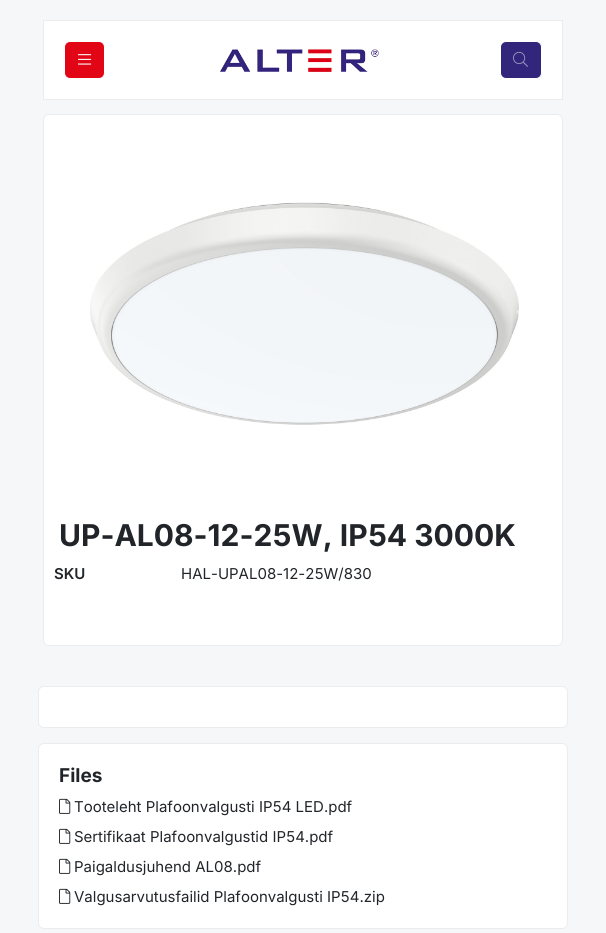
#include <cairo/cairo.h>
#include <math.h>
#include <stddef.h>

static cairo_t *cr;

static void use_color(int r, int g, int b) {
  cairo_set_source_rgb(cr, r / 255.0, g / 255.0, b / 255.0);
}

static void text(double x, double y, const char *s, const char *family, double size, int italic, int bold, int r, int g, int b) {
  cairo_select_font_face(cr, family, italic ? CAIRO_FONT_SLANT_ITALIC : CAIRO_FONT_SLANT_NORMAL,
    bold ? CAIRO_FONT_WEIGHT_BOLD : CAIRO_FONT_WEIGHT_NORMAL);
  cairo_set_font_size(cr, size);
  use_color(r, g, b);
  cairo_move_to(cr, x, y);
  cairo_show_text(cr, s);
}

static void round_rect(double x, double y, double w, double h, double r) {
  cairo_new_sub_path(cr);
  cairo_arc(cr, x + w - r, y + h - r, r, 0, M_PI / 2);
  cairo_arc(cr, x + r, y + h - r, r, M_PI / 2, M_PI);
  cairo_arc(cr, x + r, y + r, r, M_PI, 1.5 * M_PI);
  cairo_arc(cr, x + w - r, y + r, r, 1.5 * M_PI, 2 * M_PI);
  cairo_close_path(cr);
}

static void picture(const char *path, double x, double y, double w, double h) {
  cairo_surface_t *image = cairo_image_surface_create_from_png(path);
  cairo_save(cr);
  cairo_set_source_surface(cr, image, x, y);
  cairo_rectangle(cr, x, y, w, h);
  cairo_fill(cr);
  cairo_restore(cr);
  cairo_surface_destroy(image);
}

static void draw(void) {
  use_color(246, 247, 249);
  cairo_paint(cr);
  use_color(255, 255, 255);
  cairo_rectangle(cr, 43.5, 20.5, 519, 79);
  cairo_fill_preserve(cr);
  use_color(235, 236, 240);
  cairo_set_line_width(cr, 1);
  cairo_stroke(cr);
  use_color(225, 5, 22);
  round_rect(64.5, 41.5, 40, 37, 5.5);
  cairo_fill_preserve(cr);
  use_color(255, 255, 255);
  cairo_stroke(cr);
  picture("img_01.png", 78, 54, 14, 11);
  picture("img_02.png", 220, 49, 159, 23);
  use_color(49, 37, 124);
  round_rect(500.5, 41.5, 41, 37, 5.5);
  cairo_fill_preserve(cr);
  use_color(255, 255, 255);
  cairo_stroke(cr);
  picture("img_03.png", 513, 51, 15, 16);
  round_rect(43.5, 114.5, 519, 531, 5.5);
  cairo_fill_preserve(cr);
  use_color(235, 236, 240);
  cairo_stroke(cr);
  picture("img_04.png", 90, 202, 429, 223);
  cairo_set_source_rgba(cr, 1, 1, 1, 0.5);
  cairo_new_path(cr);
  cairo_move_to(cr, 520, 308);
  cairo_line_to(cr, 516, 312);
  cairo_line_to(cr, 522.5, 318);
  cairo_line_to(cr, 516, 324);
  cairo_line_to(cr, 520, 328);
  cairo_line_to(cr, 530, 318);
  cairo_close_path(cr);
  cairo_fill(cr);
  use_color(255, 255, 255);
  round_rect(38.5, 686.5, 529, 41, 5.5);
  cairo_fill_preserve(cr);
  use_color(235, 236, 240);
  cairo_stroke(cr);
  use_color(255, 255, 255);
  round_rect(38.5, 743.5, 529, 185, 5.5);
  cairo_fill_preserve(cr);
  use_color(235, 236, 240);
  cairo_stroke(cr);
  picture("img_05.png", 59, 798, 12, 16);
  picture("img_05.png", 59, 828, 12, 16);
  picture("img_05.png", 59, 858, 12, 16);
  picture("img_05.png", 59, 888, 12, 16);
  text(59, 546, "UP-AL08-12-25W, IP54 3000K", "Inter", 30, 0, 1, 33, 37, 41);
  text(54, 579, "SKU", "Inter SemiBold", 15, 0, 0, 33, 37, 41);
  text(181, 579, "HAL-UPAL08-12-25W/830", "Inter", 15, 0, 0, 33, 37, 41);
  text(59, 782, "Files", "Inter", 19, 0, 1, 33, 37, 41);
  text(74, 812, "Tooteleht Plafoonvalgusti IP54 LED.pdf", "Inter", 15, 0, 0, 33, 37, 41);
  text(74, 842, "Sertifikaat Plafoonvalgustid IP54.pdf", "Inter", 15, 0, 0, 33, 37, 41);
  text(74, 872, "Paigaldusjuhend AL08.pdf", "Inter", 15, 0, 0, 33, 37, 41);
  text(74, 902, "Valgusarvutusfailid Plafoonvalgusti IP54.zip", "Inter", 15, 0, 0, 33, 37, 41);
}

int main(void) {
  cairo_surface_t *surface = cairo_image_surface_create(CAIRO_FORMAT_RGB24, 606, 933);
  cr = cairo_create(surface);
  cairo_font_options_t *options = cairo_font_options_create();
  cairo_font_options_set_hint_metrics(options, CAIRO_HINT_METRICS_OFF);
  cairo_font_options_set_hint_style(options, CAIRO_HINT_STYLE_NONE);
  cairo_set_font_options(cr, options);
  cairo_set_miter_limit(cr, 4);
  draw();
  cairo_surface_write_to_png(surface, "out.png");
  cairo_font_options_destroy(options);
  cairo_destroy(cr);
  cairo_surface_destroy(surface);
  return 0;
}
